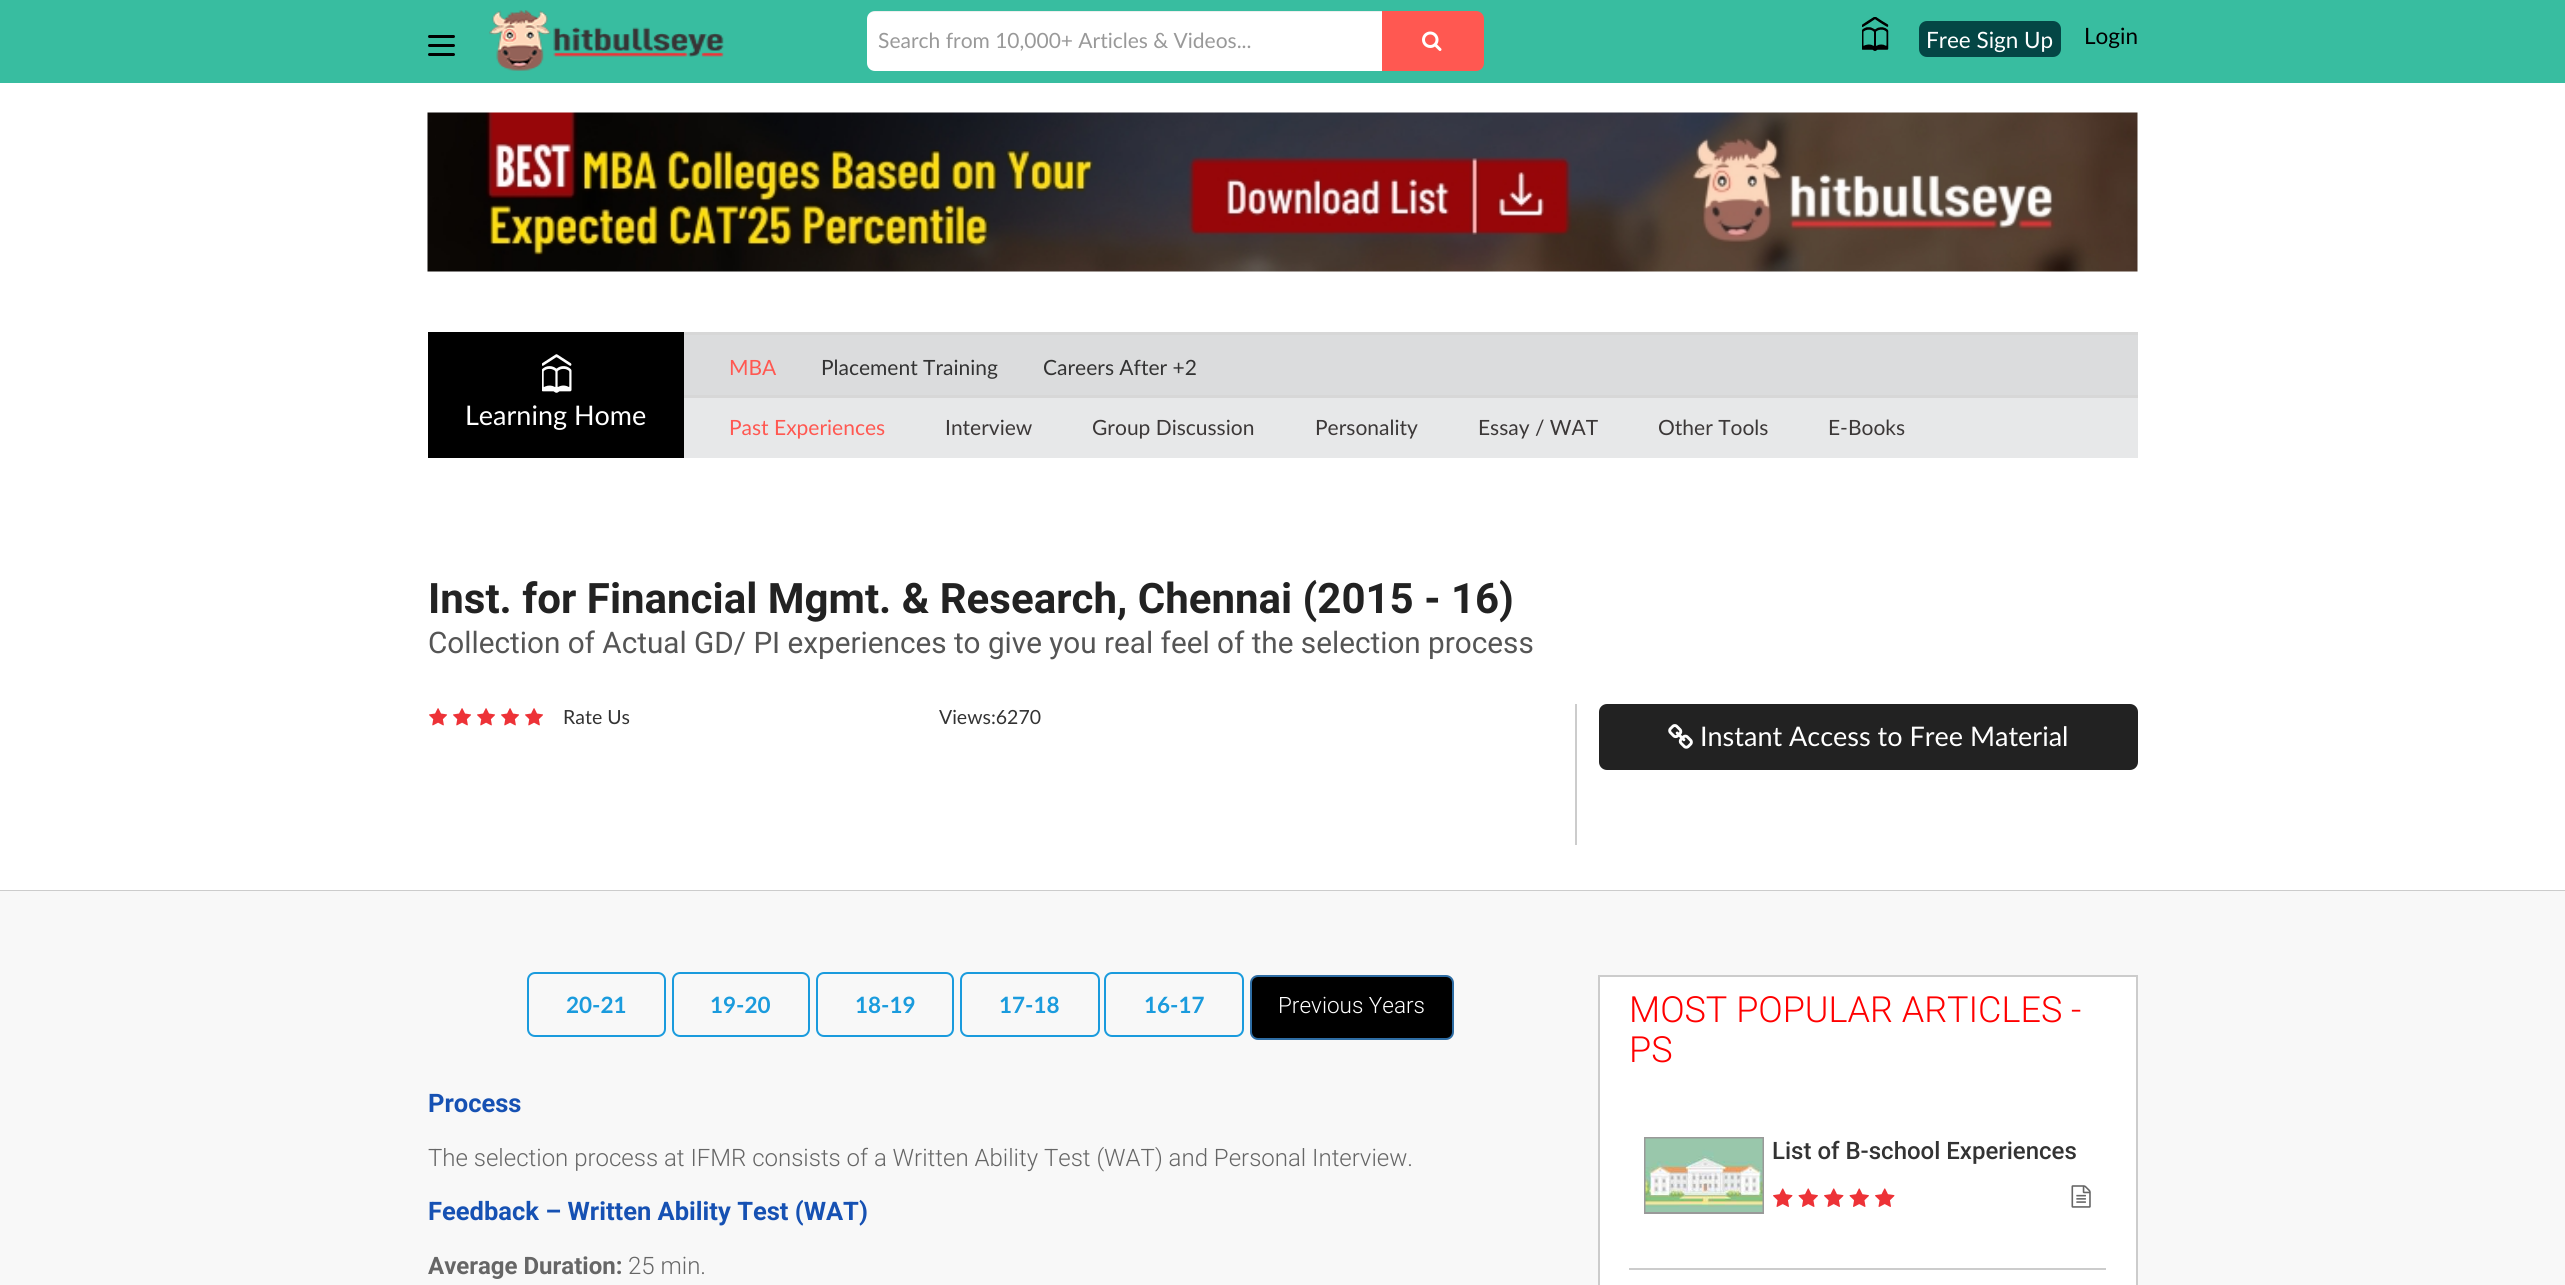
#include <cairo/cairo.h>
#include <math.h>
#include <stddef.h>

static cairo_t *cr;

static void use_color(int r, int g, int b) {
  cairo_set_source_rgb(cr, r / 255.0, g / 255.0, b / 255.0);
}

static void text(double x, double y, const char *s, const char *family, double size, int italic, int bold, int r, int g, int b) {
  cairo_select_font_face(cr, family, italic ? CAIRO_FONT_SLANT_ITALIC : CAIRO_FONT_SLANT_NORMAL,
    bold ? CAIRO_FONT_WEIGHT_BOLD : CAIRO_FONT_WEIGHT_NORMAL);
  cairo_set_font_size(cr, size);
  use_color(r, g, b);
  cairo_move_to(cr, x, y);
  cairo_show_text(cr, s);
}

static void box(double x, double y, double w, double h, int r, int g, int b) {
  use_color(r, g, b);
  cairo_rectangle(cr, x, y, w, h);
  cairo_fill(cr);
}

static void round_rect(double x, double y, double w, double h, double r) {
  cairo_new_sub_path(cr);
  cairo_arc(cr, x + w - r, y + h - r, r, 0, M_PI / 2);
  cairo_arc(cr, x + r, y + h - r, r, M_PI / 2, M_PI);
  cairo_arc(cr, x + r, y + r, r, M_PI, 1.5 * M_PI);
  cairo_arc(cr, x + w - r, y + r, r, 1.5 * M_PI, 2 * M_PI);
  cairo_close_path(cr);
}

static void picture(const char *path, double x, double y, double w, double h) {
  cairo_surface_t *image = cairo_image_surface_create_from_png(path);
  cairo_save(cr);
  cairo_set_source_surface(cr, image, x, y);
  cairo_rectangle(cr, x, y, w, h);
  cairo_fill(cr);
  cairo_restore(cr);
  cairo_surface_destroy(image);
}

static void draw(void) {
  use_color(255, 255, 255);
  cairo_paint(cr);
  box(0, 0, 2565, 83, 56, 189, 160);
  use_color(0, 0, 0);
  round_rect(428, 35, 27, 3, 1.5);
  cairo_fill(cr);
  round_rect(428, 44, 27, 3, 1.5);
  cairo_fill(cr);
  round_rect(428, 53, 27, 3, 1.5);
  cairo_fill(cr);
  picture("img_01.png", 489, 10, 235, 61);
  use_color(255, 255, 255);
  cairo_new_path(cr);
  cairo_move_to(cr, 875, 11);
  cairo_line_to(cr, 1382, 11);
  cairo_line_to(cr, 1382, 71);
  cairo_line_to(cr, 875, 71);
  cairo_curve_to(cr, 870.5, 71, 867, 67.5, 867, 63);
  cairo_line_to(cr, 867, 19);
  cairo_curve_to(cr, 867, 14.5, 870.5, 11, 875, 11);
  cairo_close_path(cr);
  cairo_fill(cr);
  cairo_set_source_rgba(cr, 0, 0, 0, 0.07);
  cairo_new_path(cr);
  cairo_move_to(cr, 874, 12);
  cairo_line_to(cr, 1382, 12);
  cairo_line_to(cr, 1382, 11);
  cairo_line_to(cr, 875, 11);
  cairo_curve_to(cr, 871, 11, 867, 15, 867, 19);
  cairo_line_to(cr, 867, 20);
  cairo_curve_to(cr, 867, 15, 870, 12, 874, 12);
  cairo_close_path(cr);
  cairo_fill(cr);
  use_color(255, 88, 81);
  cairo_new_path(cr);
  cairo_move_to(cr, 1382, 11);
  cairo_line_to(cr, 1476, 11);
  cairo_curve_to(cr, 1480.5, 11, 1484, 14.5, 1484, 19);
  cairo_line_to(cr, 1484, 63);
  cairo_curve_to(cr, 1484, 67.5, 1480.5, 71, 1476, 71);
  cairo_line_to(cr, 1382, 71);
  cairo_close_path(cr);
  cairo_fill(cr);
  picture("img_02.png", 1422, 31, 20, 20);
  picture("img_03.png", 1862, 17, 27, 34);
  use_color(4, 70, 69);
  round_rect(1919, 21, 142, 36, 8);
  cairo_fill(cr);
  picture("img_04.png", 427, 112, 1711, 160);
  box(428, 332, 256, 126, 0, 0, 0);
  picture("img_05.png", 542, 354, 30, 39);
  box(684, 332, 1454, 66, 215, 215, 215);
  box(684, 335, 1454, 60, 219, 220, 221);
  box(684, 398, 1454, 60, 231, 232, 233);
  box(0, 890, 2565, 1, 204, 204, 204);
  picture("img_06.png", 429, 708, 19, 18);
  picture("img_06.png", 453, 708, 19, 18);
  picture("img_06.png", 477, 708, 19, 18);
  picture("img_06.png", 501, 708, 19, 18);
  picture("img_06.png", 525, 708, 19, 18);
  box(1575, 704, 2, 141, 204, 204, 204);
  use_color(34, 34, 34);
  round_rect(1599, 704, 539, 66, 8);
  cairo_fill(cr);
  picture("img_07.png", 1668, 724, 25, 25);
  box(0, 891, 2565, 394, 248, 248, 248);
  round_rect(528, 973, 137, 63, 7);
  use_color(26, 155, 221);
  cairo_stroke(cr);
  round_rect(673, 973, 136, 63, 7);
  cairo_stroke(cr);
  round_rect(817, 973, 136, 63, 7);
  cairo_stroke(cr);
  round_rect(961, 973, 138, 63, 7);
  cairo_stroke(cr);
  round_rect(1105, 973, 138, 63, 7);
  cairo_stroke(cr);
  use_color(0, 0, 0);
  round_rect(1251, 976, 202, 63, 7);
  cairo_fill_preserve(cr);
  use_color(46, 109, 164);
  cairo_stroke(cr);
  use_color(255, 255, 255);
  cairo_rectangle(cr, 1599, 976, 538, 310);
  cairo_fill_preserve(cr);
  use_color(204, 204, 204);
  cairo_stroke(cr);
  box(1629, 1268, 477, 2, 204, 204, 204);
  cairo_rectangle(cr, 1645, 1138, 118, 75);
  use_color(153, 153, 153);
  cairo_stroke(cr);
  picture("img_08.png", 1645, 1138, 118, 74);
  picture("img_09.png", 1773, 1188, 20, 19);
  picture("img_10.png", 1798, 1188, 20, 19);
  picture("img_09.png", 1824, 1188, 20, 19);
  picture("img_10.png", 1849, 1188, 20, 19);
  picture("img_09.png", 1875, 1188, 20, 19);
  picture("img_11.png", 2071, 1185, 20, 23);
  text(878, 48, "Search from 10,000+ Articles & Videos...", "Lato", 21, 0, 0, 153, 153, 153);
  text(1926, 48, "Free Sign Up", "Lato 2", 22.5, 0, 0, 255, 255, 255);
  text(2084, 44, "Login", "Lato 2", 22.5, 0, 0, 0, 0, 0);
  text(465, 425, "Learning Home", "Lato 2", 27, 0, 0, 255, 255, 255);
  text(729, 375, "MBA", "Lato", 21, 0, 0, 255, 88, 81);
  text(821, 375, "Placement Training", "Lato", 21, 0, 0, 51, 51, 51);
  text(1043, 375, "Careers After +2", "Lato", 21, 0, 0, 51, 51, 51);
  text(729, 435, "Past Experiences", "Lato", 21, 0, 0, 255, 88, 81);
  text(945, 435, "Interview", "Lato", 21, 0, 0, 60, 56, 56);
  text(1092, 435, "Group Discussion", "Lato", 21, 0, 0, 60, 56, 56);
  text(1315, 435, "Personality", "Lato", 21, 0, 0, 60, 56, 56);
  text(1478, 435, "Essay / WAT", "Lato", 21, 0, 0, 60, 56, 56);
  text(1658, 435, "Other Tools", "Lato", 21, 0, 0, 60, 56, 56);
  text(1828, 435, "E-Books", "Lato", 21, 0, 0, 60, 56, 56);
  text(428, 613, "Inst. for Financial Mgmt. & Research, Chennai (2015 - 16)", "Roboto", 42, 0, 1, 34, 34, 34);
  text(428, 653, "Collection of Actual GD/ PI experiences to give you real feel of the selection process", "Roboto", 29.7, 0, 0, 85, 85, 85);
  text(563, 724, "Rate Us", "Lato", 19.5, 0, 0, 51, 51, 51);
  text(939, 724, "Views:6270", "Lato", 19.5, 0, 0, 51, 51, 51);
  text(1700, 746, "Instant Access to Free Material", "Lato", 27, 0, 0, 255, 255, 255);
  text(566, 1013, "20-21", "Lato", 22.5, 0, 1, 26, 155, 221);
  text(710, 1013, "19-20", "Lato", 22.5, 0, 1, 26, 155, 221);
  text(855, 1013, "18-19", "Lato", 22.5, 0, 1, 26, 155, 221);
  text(999, 1013, "17-18", "Lato", 22.5, 0, 1, 26, 155, 221);
  text(1144, 1013, "16-17", "Lato", 22.5, 0, 1, 26, 155, 221);
  text(1278, 1013, "Previous Years", "Roboto Light", 22.5, 0, 0, 255, 255, 255);
  text(428, 1112, "Process", "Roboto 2", 25.5, 0, 1, 22, 81, 179);
  text(428, 1166, "The selection process at IFMR consists of a Written Ability Test (WAT) and Personal Interview.", "Roboto Light", 24, 0, 0, 102, 102, 102);
  text(428, 1220, "Feedback – Written Ability Test (WAT)", "Roboto 2", 25.5, 0, 1, 22, 81, 179);
  text(428, 1274, "Average Duration:", "Roboto 2", 24, 0, 1, 102, 102, 102);
  text(628, 1274, "25 min.", "Roboto Light", 24, 0, 0, 102, 102, 102);
  text(1629, 1022, "MOST POPULAR ARTICLES -", "Roboto Light", 36, 0, 0, 255, 0, 0);
  text(1629, 1062, "PS", "Roboto Light", 36, 0, 0, 255, 0, 0);
  text(1772, 1159, "List of B-school Experiences", "Roboto Medium", 24, 0, 0, 51, 51, 51);
}

int main(void) {
  cairo_surface_t *surface = cairo_image_surface_create(CAIRO_FORMAT_RGB24, 2565, 1285);
  cr = cairo_create(surface);
  cairo_font_options_t *options = cairo_font_options_create();
  cairo_font_options_set_hint_metrics(options, CAIRO_HINT_METRICS_OFF);
  cairo_font_options_set_hint_style(options, CAIRO_HINT_STYLE_NONE);
  cairo_set_font_options(cr, options);
  cairo_set_miter_limit(cr, 4);
  draw();
  cairo_surface_write_to_png(surface, "out.png");
  cairo_font_options_destroy(options);
  cairo_destroy(cr);
  cairo_surface_destroy(surface);
  return 0;
}
